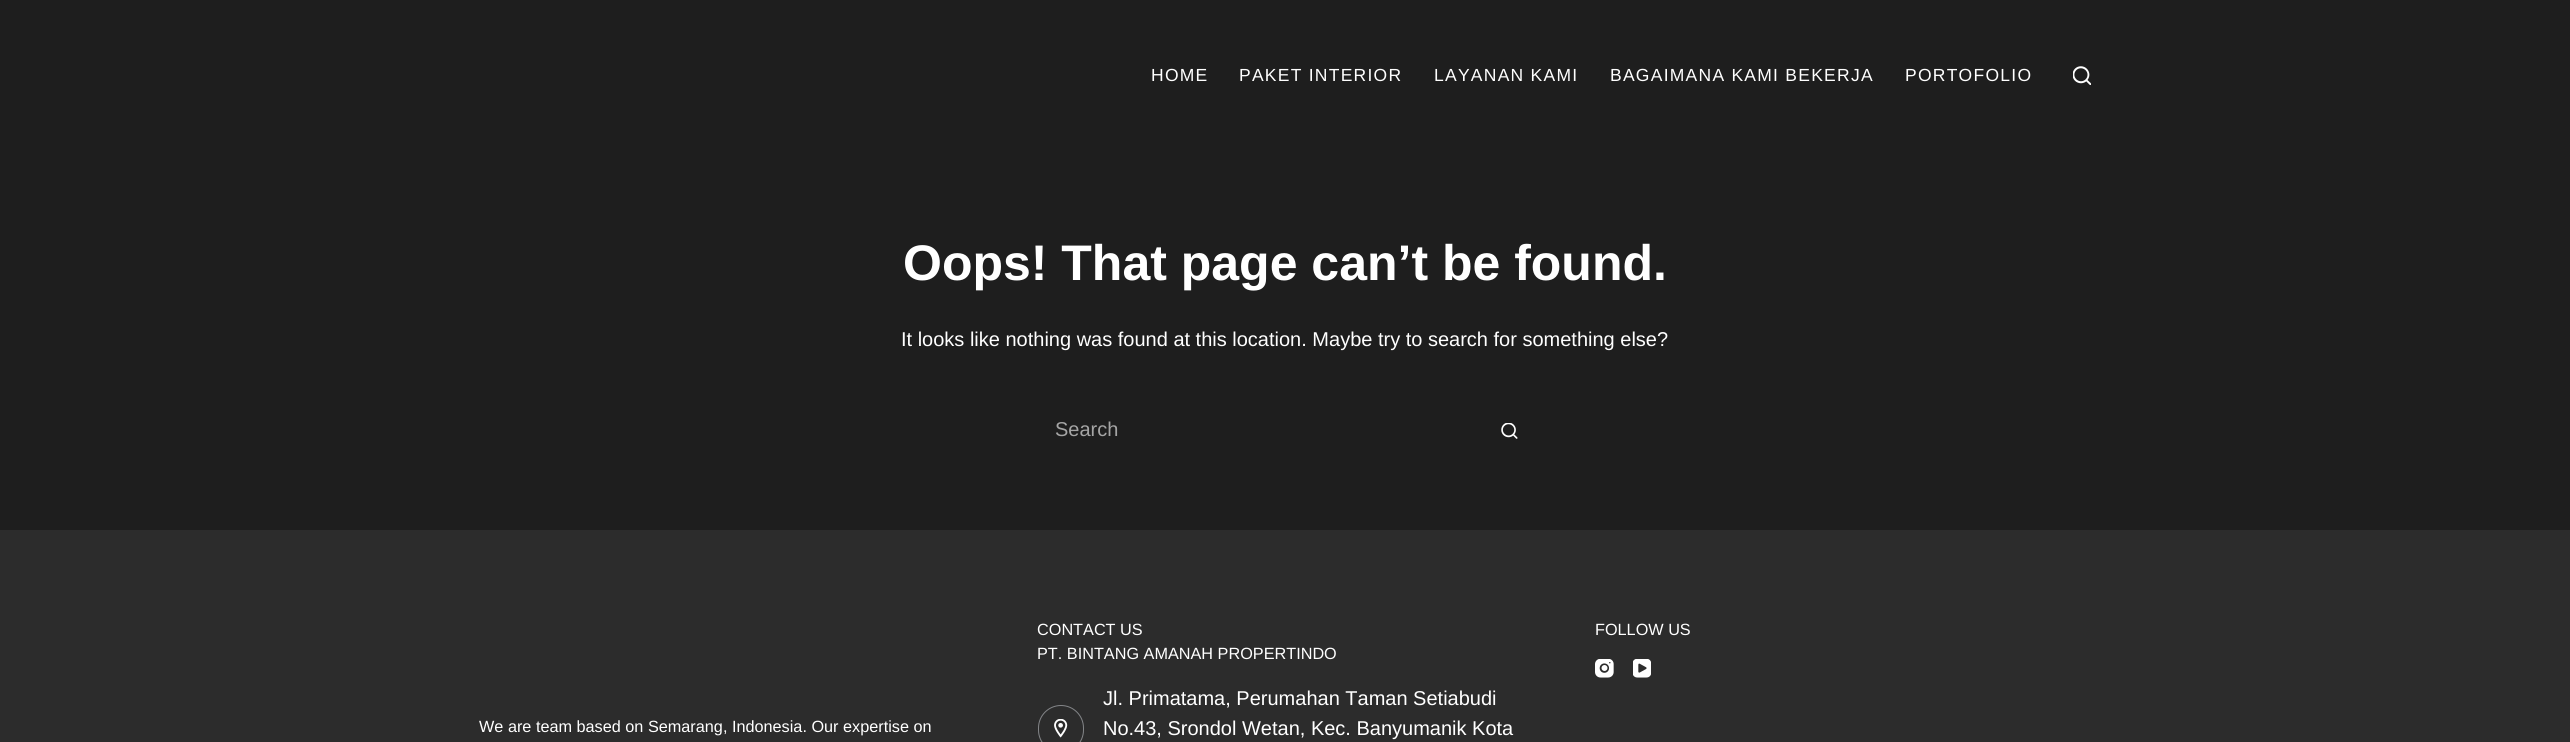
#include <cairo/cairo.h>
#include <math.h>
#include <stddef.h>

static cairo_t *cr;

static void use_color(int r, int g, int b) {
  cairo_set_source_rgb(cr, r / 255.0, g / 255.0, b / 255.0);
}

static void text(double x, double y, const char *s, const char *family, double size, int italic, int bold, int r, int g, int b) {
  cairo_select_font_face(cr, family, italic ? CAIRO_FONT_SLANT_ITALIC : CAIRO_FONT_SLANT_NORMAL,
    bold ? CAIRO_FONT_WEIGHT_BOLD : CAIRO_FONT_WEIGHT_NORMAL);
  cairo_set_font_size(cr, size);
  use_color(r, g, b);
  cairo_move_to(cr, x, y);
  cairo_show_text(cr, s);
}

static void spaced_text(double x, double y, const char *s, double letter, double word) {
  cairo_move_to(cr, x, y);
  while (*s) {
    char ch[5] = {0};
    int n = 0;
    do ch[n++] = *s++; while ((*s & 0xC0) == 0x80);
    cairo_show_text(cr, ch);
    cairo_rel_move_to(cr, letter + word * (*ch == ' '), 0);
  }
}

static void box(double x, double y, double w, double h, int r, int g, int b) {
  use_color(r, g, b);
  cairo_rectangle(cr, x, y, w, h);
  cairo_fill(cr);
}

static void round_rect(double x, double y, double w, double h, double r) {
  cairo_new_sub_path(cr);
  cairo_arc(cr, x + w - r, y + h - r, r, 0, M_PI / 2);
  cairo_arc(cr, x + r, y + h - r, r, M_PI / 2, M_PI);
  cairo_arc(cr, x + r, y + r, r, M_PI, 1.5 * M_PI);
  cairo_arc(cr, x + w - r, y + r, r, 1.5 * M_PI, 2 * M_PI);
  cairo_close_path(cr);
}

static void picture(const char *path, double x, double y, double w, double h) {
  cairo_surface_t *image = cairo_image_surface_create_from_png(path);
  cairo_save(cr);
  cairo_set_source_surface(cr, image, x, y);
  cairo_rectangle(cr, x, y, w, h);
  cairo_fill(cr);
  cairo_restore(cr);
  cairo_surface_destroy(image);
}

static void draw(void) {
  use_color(30, 30, 30);
  cairo_paint(cr);
  picture("img_01.png", 2073, 66, 18, 19);
  picture("img_02.png", 1501, 423, 17, 16);
  box(0, 530, 2570, 212, 44, 44, 44);
  round_rect(1038.5, 705.5, 45, 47, 22.5);
  use_color(131, 133, 136);
  cairo_set_line_width(cr, 1);
  cairo_stroke(cr);
  picture("img_03.png", 1054, 719, 14, 19);
  picture("img_04.png", 1595, 659, 19, 19);
  picture("img_05.png", 1633, 659, 18, 19);
  cairo_select_font_face(cr, "Liberation Sans", CAIRO_FONT_SLANT_NORMAL, CAIRO_FONT_WEIGHT_NORMAL);
  cairo_set_font_size(cr, 17.5);
  use_color(255, 255, 255);
  spaced_text(1151, 81, "HOME", 1.25, 0);
  spaced_text(1239, 81, "PAKET INTERIOR", 1.25, 0);
  spaced_text(1434, 81, "LAYANAN KAMI", 1.25, 0);
  spaced_text(1610, 81, "BAGAIMANA KAMI BEKERJA", 1.25, 0);
  spaced_text(1905, 81, "PORTOFOLIO", 1.25, 0);
  text(903, 280, "Oops! That page can’t be found.", "Liberation Sans", 50, 0, 1, 255, 255, 255);
  text(901, 346, "It looks like nothing was found at this location. Maybe try to search for something else?", "Liberation Sans", 20, 0, 0, 255, 255, 255);
  text(1055, 436, "Search", "Liberation Sans", 20, 0, 0, 165, 165, 165);
  text(1037, 635, "CONTACT US", "Liberation Sans", 16.25, 0, 0, 255, 255, 255);
  text(1037, 659, "PT. BINTANG AMANAH PROPERTINDO", "Liberation Sans", 16.25, 0, 0, 255, 255, 255);
  text(1103, 705, "Jl. Primatama, Perumahan Taman Setiabudi", "Liberation Sans", 20, 0, 0, 255, 255, 255);
  text(1103, 735, "No.43, Srondol Wetan, Kec. Banyumanik Kota", "Liberation Sans", 20, 0, 0, 255, 255, 255);
  text(1595, 635, "FOLLOW US", "Liberation Sans", 16.25, 0, 0, 255, 255, 255);
  text(479, 732, "We are team based on Semarang, Indonesia. Our expertise on", "Liberation Sans", 16.25, 0, 0, 255, 255, 255);
}

int main(void) {
  cairo_surface_t *surface = cairo_image_surface_create(CAIRO_FORMAT_RGB24, 2570, 742);
  cr = cairo_create(surface);
  cairo_font_options_t *options = cairo_font_options_create();
  cairo_font_options_set_hint_metrics(options, CAIRO_HINT_METRICS_OFF);
  cairo_font_options_set_hint_style(options, CAIRO_HINT_STYLE_NONE);
  cairo_set_font_options(cr, options);
  cairo_set_miter_limit(cr, 4);
  draw();
  cairo_surface_write_to_png(surface, "out.png");
  cairo_font_options_destroy(options);
  cairo_destroy(cr);
  cairo_surface_destroy(surface);
  return 0;
}
